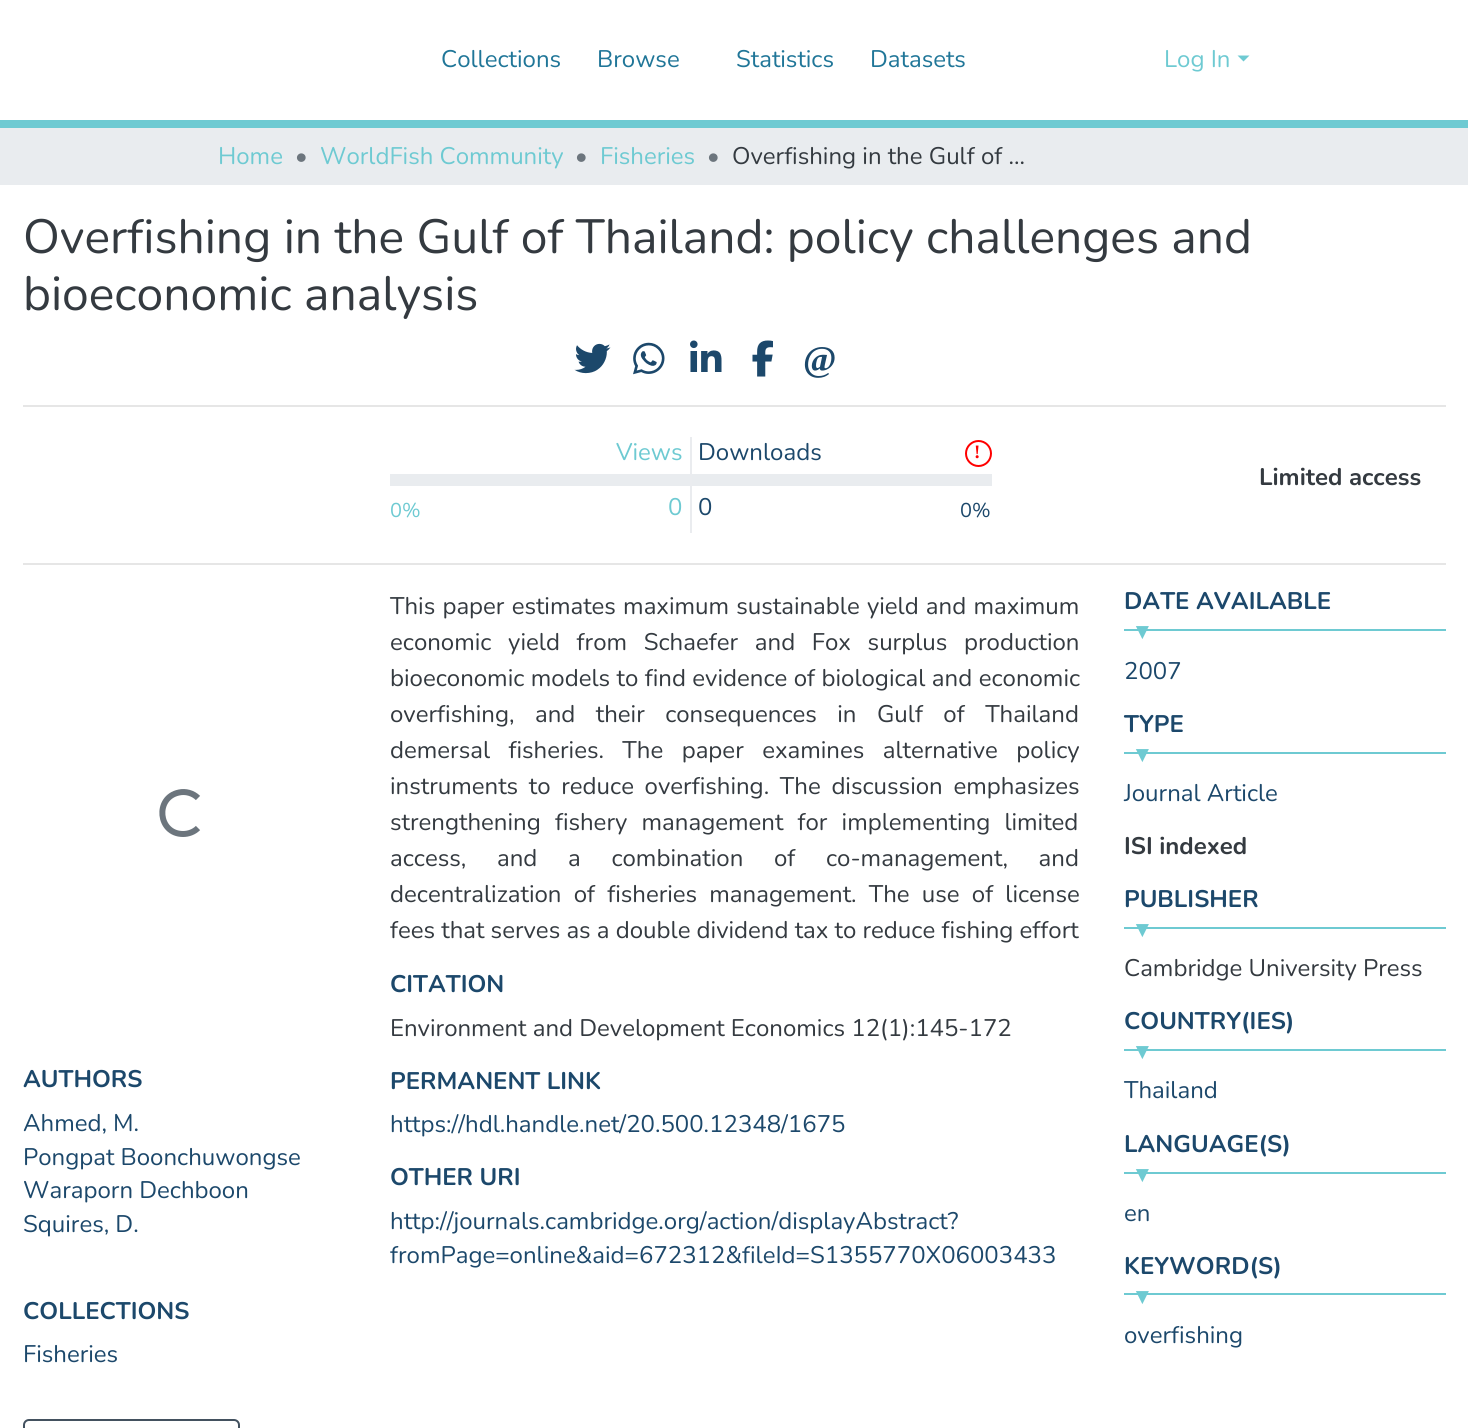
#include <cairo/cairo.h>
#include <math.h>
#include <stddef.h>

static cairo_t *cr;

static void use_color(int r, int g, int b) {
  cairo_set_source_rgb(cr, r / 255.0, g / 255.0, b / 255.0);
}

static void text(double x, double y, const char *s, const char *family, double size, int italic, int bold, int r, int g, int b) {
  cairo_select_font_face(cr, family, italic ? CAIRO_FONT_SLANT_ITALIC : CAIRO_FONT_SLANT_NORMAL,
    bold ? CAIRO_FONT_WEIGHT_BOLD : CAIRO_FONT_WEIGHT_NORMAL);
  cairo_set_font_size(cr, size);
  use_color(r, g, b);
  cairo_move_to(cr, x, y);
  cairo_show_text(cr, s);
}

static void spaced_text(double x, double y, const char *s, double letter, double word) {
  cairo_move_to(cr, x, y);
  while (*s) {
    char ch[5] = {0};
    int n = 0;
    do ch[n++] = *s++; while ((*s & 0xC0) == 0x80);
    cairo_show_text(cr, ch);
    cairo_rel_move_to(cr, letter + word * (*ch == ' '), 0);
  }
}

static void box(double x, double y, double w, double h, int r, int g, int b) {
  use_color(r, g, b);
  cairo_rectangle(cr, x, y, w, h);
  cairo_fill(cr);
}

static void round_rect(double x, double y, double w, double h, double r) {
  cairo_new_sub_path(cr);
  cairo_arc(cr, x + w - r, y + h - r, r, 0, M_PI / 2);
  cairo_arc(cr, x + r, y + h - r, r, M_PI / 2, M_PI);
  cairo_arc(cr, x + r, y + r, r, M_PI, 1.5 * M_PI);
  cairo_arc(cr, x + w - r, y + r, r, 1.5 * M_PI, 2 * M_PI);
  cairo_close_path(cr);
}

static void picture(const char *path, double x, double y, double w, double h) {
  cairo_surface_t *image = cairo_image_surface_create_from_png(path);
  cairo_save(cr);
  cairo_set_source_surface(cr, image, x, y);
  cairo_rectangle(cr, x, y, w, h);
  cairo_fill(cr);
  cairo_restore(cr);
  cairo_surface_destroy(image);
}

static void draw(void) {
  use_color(255, 255, 255);
  cairo_paint(cr);
  box(0, 120, 1468, 8, 110, 202, 210);
  cairo_new_path(cr);
  cairo_move_to(cr, 1237.5, 55.5);
  cairo_line_to(cr, 1249.5, 55.5);
  cairo_line_to(cr, 1243.5, 61.5);
  cairo_close_path(cr);
  cairo_fill(cr);
  box(0, 128, 1468, 57, 233, 236, 239);
  picture("img_01.png", 574, 343, 37, 31);
  picture("img_02.png", 633, 342, 32, 33);
  picture("img_03.png", 690, 340, 32, 32);
  picture("img_04.png", 752, 340, 21, 37);
  box(23, 405, 1423, 2, 230, 230, 230);
  box(390, 474, 300, 12, 233, 236, 239);
  box(690, 437, 2, 96, 234, 236, 239);
  cairo_arc(cr, 978.5, 453.5, 12.5, 0, 2 * M_PI);
  use_color(255, 0, 0);
  cairo_stroke(cr);
  box(692, 474, 300, 12, 233, 236, 239);
  box(23, 563, 1423, 2, 230, 230, 230);
  cairo_new_path(cr);
  cairo_move_to(cr, 198, 828);
  cairo_curve_to(cr, 194, 832, 188.5, 834, 183, 834);
  cairo_curve_to(cr, 158, 834, 154.5, 797.5, 179, 792.5);
  cairo_curve_to(cr, 185.5, 791, 193, 793, 198, 798);
  use_color(108, 117, 125);
  cairo_set_line_width(cr, 6);
  cairo_stroke(cr);
  round_rect(24, 1420, 215, 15, 5);
  use_color(67, 81, 95);
  cairo_set_line_width(cr, 2);
  cairo_stroke(cr);
  box(1124, 629, 322, 2, 110, 202, 210);
  box(1124, 752, 322, 2, 110, 202, 210);
  box(1124, 927, 322, 2, 110, 202, 210);
  box(1124, 1049, 322, 2, 110, 202, 210);
  box(1124, 1172, 322, 2, 110, 202, 210);
  box(1124, 1293, 322, 2, 110, 202, 210);
  text(441, 67, "Collections", "Nunito", 24, 0, 0, 32, 118, 152);
  text(597, 67, "Browse", "Nunito", 24, 0, 0, 32, 118, 152);
  text(736, 67, "Statistics", "Nunito", 24, 0, 0, 32, 118, 152);
  text(870, 67, "Datasets", "Nunito", 24, 0, 0, 32, 118, 152);
  text(1164, 67, "Log In", "Nunito", 24, 0, 0, 110, 202, 210);
  text(218, 164, "Home", "Nunito", 24, 0, 0, 110, 202, 210);
  text(295, 164, "•", "Nunito", 24, 0, 0, 108, 117, 125);
  text(320, 164, "WorldFish Community", "Nunito", 24, 0, 0, 110, 202, 210);
  text(575, 164, "•", "Nunito", 24, 0, 0, 108, 117, 125);
  text(600, 164, "Fisheries", "Nunito", 24, 0, 0, 110, 202, 210);
  text(707, 164, "•", "Nunito", 24, 0, 0, 108, 117, 125);
  text(732, 164, "Overfishing in the Gulf of …", "Nunito", 24, 0, 0, 52, 58, 64);
  text(23, 253, "Overfishing in the Gulf of Thailand: policy challenges and", "Nunito", 48, 0, 0, 52, 58, 64);
  text(23, 310, "bioeconomic analysis", "Nunito", 48, 0, 0, 52, 58, 64);
  text(803, 371, "@", "Liberation Serif", 36, 0, 1, 28, 72, 107);
  text(616, 460, "Views", "Nunito", 24, 0, 0, 110, 202, 210);
  text(390, 517, "0%", "Nunito", 20, 0, 0, 110, 202, 210);
  text(668, 515, "0", "Nunito", 24, 0, 0, 110, 202, 210);
  text(698, 460, "Downloads", "Nunito", 24, 0, 0, 28, 72, 107);
  text(974, 458, "!", "Liberation Serif", 19, 0, 1, 255, 0, 0);
  text(698, 515, "0", "Nunito", 24, 0, 0, 28, 72, 107);
  text(960, 517, "0%", "Nunito", 20, 0, 0, 28, 72, 107);
  text(1259, 485, "Limited access", "Nunito", 24, 0, 1, 52, 58, 64);
  text(23, 1087, "AUTHORS", "Nunito", 24, 0, 1, 28, 72, 107);
  text(23, 1131, "Ahmed, M.", "Nunito", 24, 0, 0, 28, 72, 107);
  text(23, 1165, "Pongpat Boonchuwongse", "Nunito", 24, 0, 0, 28, 72, 107);
  text(23, 1198, "Waraporn Dechboon", "Nunito", 24, 0, 0, 28, 72, 107);
  text(23, 1232, "Squires, D.", "Nunito", 24, 0, 0, 28, 72, 107);
  text(23, 1319, "COLLECTIONS", "Nunito", 24, 0, 1, 28, 72, 107);
  text(23, 1362, "Fisheries", "Nunito", 24, 0, 0, 28, 72, 107);
  use_color(52, 58, 64);
  spaced_text(390, 614, "This paper estimates maximum sustainable yield and maximum", 0, 1);
  spaced_text(390, 650, "economic yield from Schaefer and Fox surplus production", 0, 10.5);
  spaced_text(390, 686, "bioeconomic models to find evidence of biological and economic", 0, 0.25);
  spaced_text(390, 722, "overfishing, and their consequences in Gulf of Thailand", 0, 14.25);
  spaced_text(390, 758, "demersal fisheries. The paper examines alternative policy", 0, 12.25);
  spaced_text(390, 794, "instruments to reduce overfishing. The discussion emphasizes", 0, 4.5);
  spaced_text(390, 830, "strengthening fishery management for implementing limited", 0, 8);
  spaced_text(390, 866, "access, and a combination of co-management, and", 0, 24.5);
  spaced_text(390, 902, "decentralization of fisheries management. The use of license", 0, 6);
  text(390, 938, "fees that serves as a double dividend tax to reduce fishing effort", "Nunito", 24, 0, 0, 52, 58, 64);
  text(390, 992, "CITATION", "Nunito", 24, 0, 1, 28, 72, 107);
  text(390, 1036, "Environment and Development Economics 12(1):145-172", "Nunito", 24, 0, 0, 52, 58, 64);
  text(390, 1089, "PERMANENT LINK", "Nunito", 24, 0, 1, 28, 72, 107);
  text(390, 1132, "https://hdl.handle.net/20.500.12348/1675", "Nunito", 24, 0, 0, 28, 72, 107);
  text(390, 1185, "OTHER URI", "Nunito", 24, 0, 1, 28, 72, 107);
  text(390, 1229, "http://journals.cambridge.org/action/displayAbstract?", "Nunito", 24, 0, 0, 28, 72, 107);
  text(390, 1263, "fromPage=online&aid=672312&fileId=S1355770X06003433", "Nunito", 24, 0, 0, 28, 72, 107);
  text(1124, 609, "DATE AVAILABLE", "Nunito", 24, 0, 1, 28, 72, 107);
  text(1136, 639, "▾", "DejaVu Sans", 24, 0, 1, 110, 202, 210);
  text(1124, 679, "2007", "Nunito", 24, 0, 0, 28, 72, 107);
  text(1124, 732, "TYPE", "Nunito", 24, 0, 1, 28, 72, 107);
  text(1136, 762, "▾", "DejaVu Sans", 24, 0, 1, 110, 202, 210);
  text(1124, 801, "Journal Article", "Nunito", 24, 0, 0, 28, 72, 107);
  text(1124, 854, "ISI indexed", "Nunito", 24, 0, 1, 52, 58, 64);
  text(1124, 907, "PUBLISHER", "Nunito", 24, 0, 1, 28, 72, 107);
  text(1136, 937, "▾", "DejaVu Sans", 24, 0, 1, 110, 202, 210);
  text(1124, 976, "Cambridge University Press", "Nunito", 24, 0, 0, 52, 58, 64);
  text(1124, 1029, "COUNTRY(IES)", "Nunito", 24, 0, 1, 28, 72, 107);
  text(1136, 1059, "▾", "DejaVu Sans", 24, 0, 1, 110, 202, 210);
  text(1124, 1098, "Thailand", "Nunito", 24, 0, 0, 28, 72, 107);
  text(1124, 1152, "LANGUAGE(S)", "Nunito", 24, 0, 1, 28, 72, 107);
  text(1136, 1182, "▾", "DejaVu Sans", 24, 0, 1, 110, 202, 210);
  text(1124, 1221, "en", "Nunito", 24, 0, 0, 28, 72, 107);
  text(1124, 1274, "KEYWORD(S)", "Nunito", 24, 0, 1, 28, 72, 107);
  text(1136, 1304, "▾", "DejaVu Sans", 24, 0, 1, 110, 202, 210);
  text(1124, 1343, "overfishing", "Nunito", 24, 0, 0, 28, 72, 107);
}

int main(void) {
  cairo_surface_t *surface = cairo_image_surface_create(CAIRO_FORMAT_RGB24, 1468, 1428);
  cr = cairo_create(surface);
  cairo_font_options_t *options = cairo_font_options_create();
  cairo_font_options_set_hint_metrics(options, CAIRO_HINT_METRICS_OFF);
  cairo_font_options_set_hint_style(options, CAIRO_HINT_STYLE_NONE);
  cairo_set_font_options(cr, options);
  cairo_set_miter_limit(cr, 4);
  draw();
  cairo_surface_write_to_png(surface, "out.png");
  cairo_font_options_destroy(options);
  cairo_destroy(cr);
  cairo_surface_destroy(surface);
  return 0;
}
